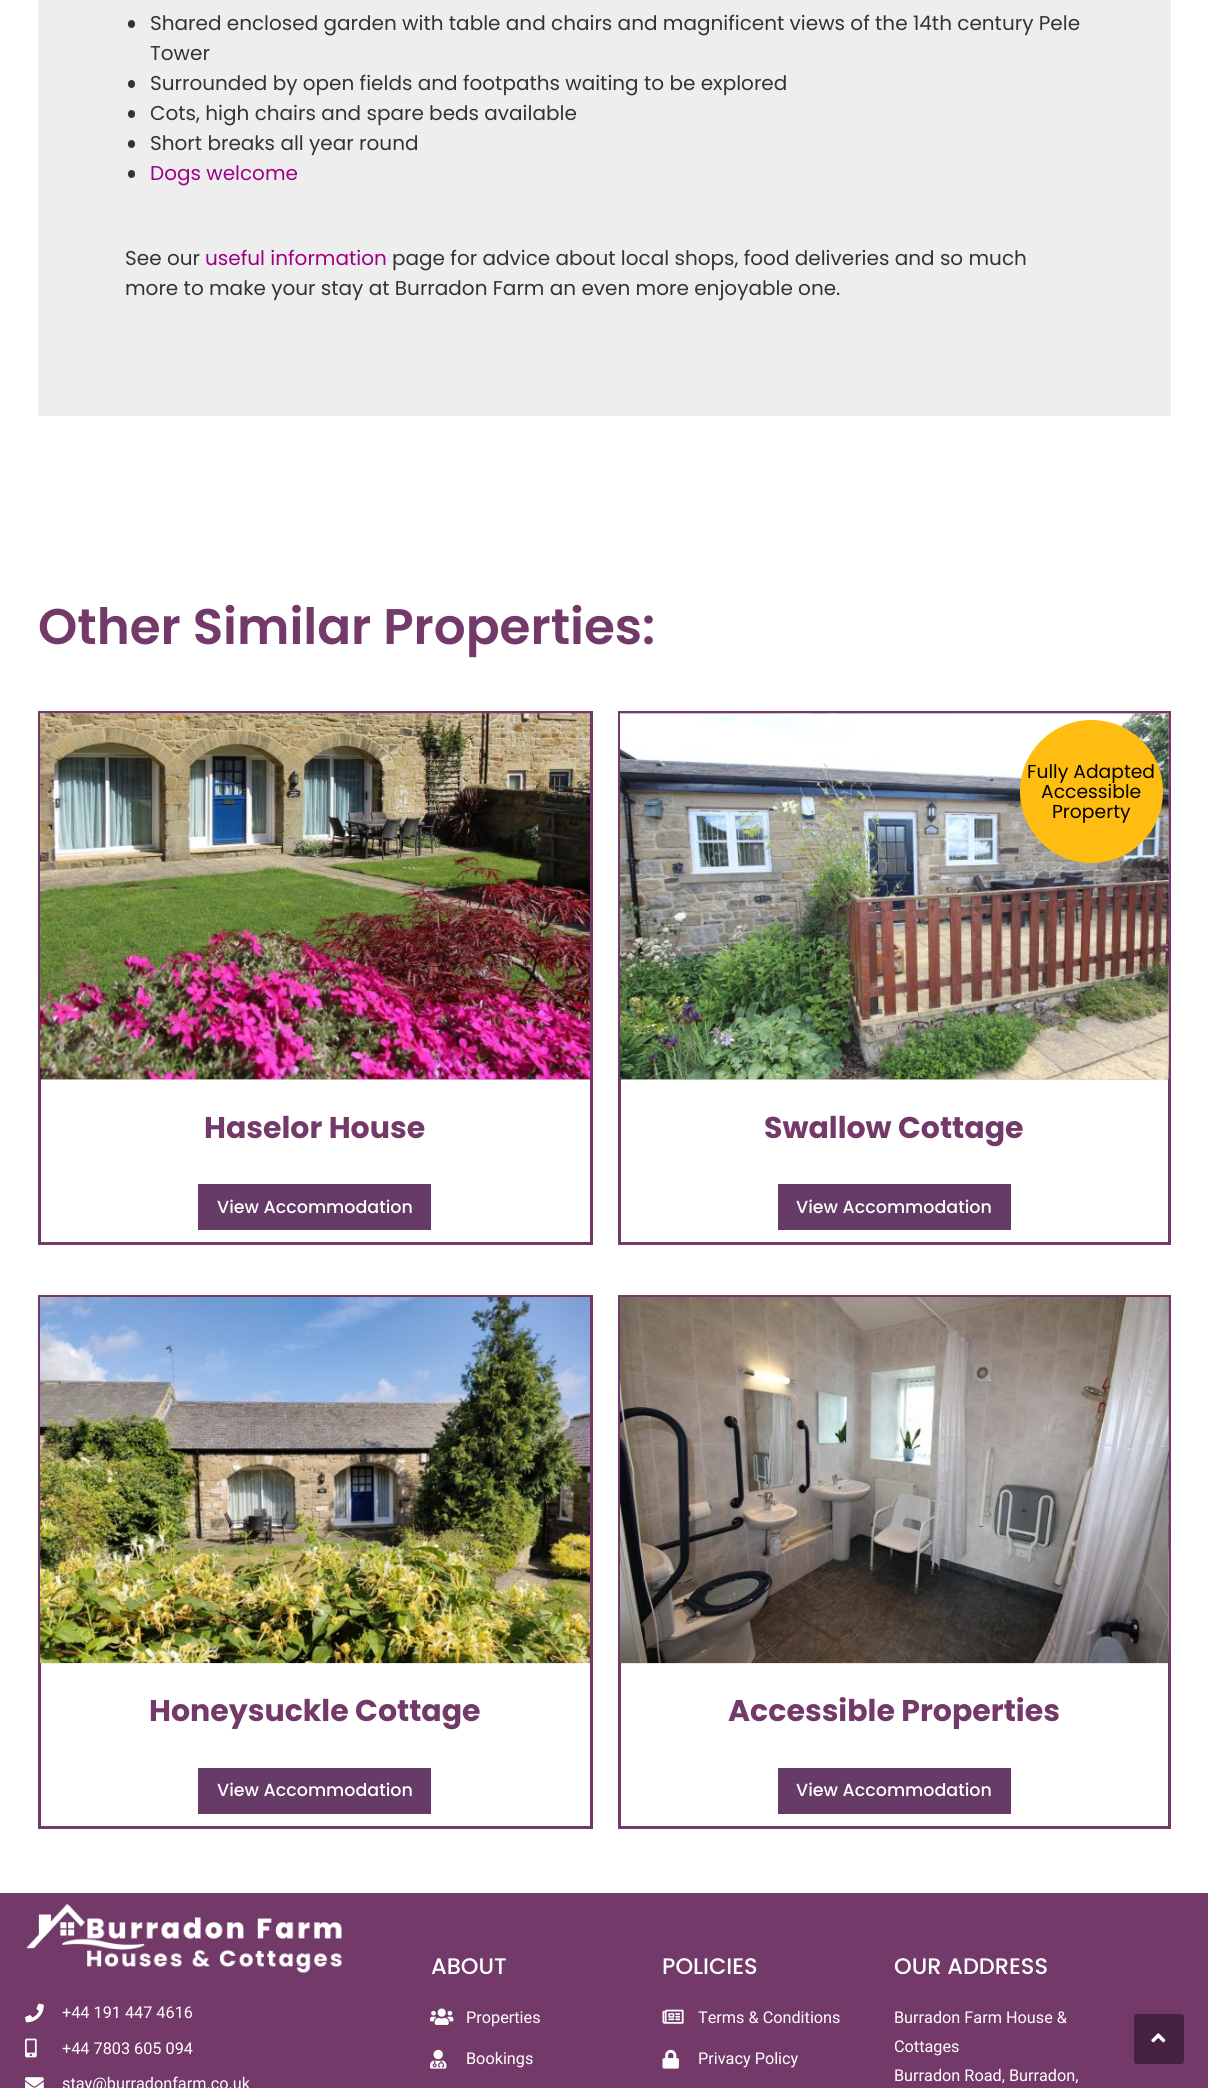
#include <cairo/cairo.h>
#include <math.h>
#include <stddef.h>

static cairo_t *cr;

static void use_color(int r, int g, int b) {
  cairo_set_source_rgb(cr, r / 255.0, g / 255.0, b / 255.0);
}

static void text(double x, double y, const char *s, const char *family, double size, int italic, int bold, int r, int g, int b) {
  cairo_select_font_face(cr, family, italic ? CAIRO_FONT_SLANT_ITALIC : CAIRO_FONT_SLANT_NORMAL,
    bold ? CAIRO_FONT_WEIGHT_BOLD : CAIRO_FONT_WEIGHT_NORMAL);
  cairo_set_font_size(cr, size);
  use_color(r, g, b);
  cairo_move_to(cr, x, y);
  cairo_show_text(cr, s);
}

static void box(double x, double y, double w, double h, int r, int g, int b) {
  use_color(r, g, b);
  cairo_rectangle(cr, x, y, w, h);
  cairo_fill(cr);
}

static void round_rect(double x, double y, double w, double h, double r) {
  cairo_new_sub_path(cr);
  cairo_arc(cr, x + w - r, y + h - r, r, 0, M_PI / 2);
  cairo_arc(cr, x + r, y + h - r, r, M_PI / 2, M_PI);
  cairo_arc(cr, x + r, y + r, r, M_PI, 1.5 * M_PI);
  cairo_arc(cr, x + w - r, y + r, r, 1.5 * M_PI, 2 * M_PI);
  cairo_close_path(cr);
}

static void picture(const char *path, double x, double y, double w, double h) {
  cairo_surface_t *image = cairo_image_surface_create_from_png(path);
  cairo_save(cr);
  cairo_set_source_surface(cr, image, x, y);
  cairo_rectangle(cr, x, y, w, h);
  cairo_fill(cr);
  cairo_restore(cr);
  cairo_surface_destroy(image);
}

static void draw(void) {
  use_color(255, 255, 255);
  cairo_paint(cr);
  box(38, 0, 1133, 416, 239, 238, 238);
  use_color(51, 51, 51);
  round_rect(128, 20, 7, 8, 3.5);
  cairo_fill(cr);
  round_rect(128, 80, 7, 8, 3.5);
  cairo_fill(cr);
  round_rect(128, 110, 7, 8, 3.5);
  cairo_fill(cr);
  round_rect(128, 140, 7, 8, 3.5);
  cairo_fill(cr);
  round_rect(128, 170, 7, 8, 3.5);
  cairo_fill(cr);
  cairo_rectangle(cr, 39.5, 712.5, 552, 531);
  use_color(115, 57, 105);
  cairo_set_line_width(cr, 3);
  cairo_stroke(cr);
  picture("img_01.png", 40, 713, 550, 367);
  picture("img_02.png", 40, 713, 550, 367);
  box(198, 1184, 233, 46, 102, 59, 104);
  cairo_rectangle(cr, 619.5, 712.5, 550, 531);
  use_color(115, 57, 105);
  cairo_stroke(cr);
  picture("img_03.png", 620, 713, 549, 367);
  picture("img_04.png", 620, 713, 549, 367);
  use_color(255, 189, 17);
  cairo_arc(cr, 1091.5, 791.5, 71.5, 0, 2 * M_PI);
  cairo_fill(cr);
  box(778, 1184, 233, 46, 102, 59, 104);
  cairo_rectangle(cr, 39.5, 1296.5, 552, 531);
  use_color(115, 57, 105);
  cairo_stroke(cr);
  picture("img_06.png", 40, 1663, 550, 1);
  picture("img_05.png", 40, 1297, 550, 367);
  box(198, 1768, 233, 46, 102, 59, 104);
  cairo_rectangle(cr, 619.5, 1296.5, 550, 531);
  use_color(115, 57, 105);
  cairo_stroke(cr);
  picture("img_07.png", 620, 1297, 549, 367);
  picture("img_08.png", 620, 1297, 549, 367);
  box(778, 1768, 233, 46, 102, 59, 104);
  box(0, 1893, 1208, 195, 115, 57, 105);
  picture("img_09.png", 26, 1903, 316, 71);
  picture("img_10.png", 25, 2003, 19, 20);
  picture("img_11.png", 25, 2038, 12, 20);
  picture("img_12.png", 25, 2077, 19, 11);
  picture("img_13.png", 430, 2008, 24, 17);
  picture("img_14.png", 430, 2049, 17, 20);
  picture("img_15.png", 662, 2009, 22, 15);
  picture("img_16.png", 662, 2049, 17, 20);
  use_color(69, 34, 63);
  round_rect(1134, 2014, 50, 50, 2.5);
  cairo_fill(cr);
  picture("img_17.png", 1151, 2033, 15, 10);
  text(150, 30, "Shared enclosed garden with table and chairs and magnificent views of the 14th century Pele", "Poppins", 20, 0, 0, 51, 51, 51);
  text(150, 60, "Tower", "Poppins", 20, 0, 0, 51, 51, 51);
  text(150, 90, "Surrounded by open fields and footpaths waiting to be explored", "Poppins", 20, 0, 0, 51, 51, 51);
  text(150, 120, "Cots, high chairs and spare beds available", "Poppins", 20, 0, 0, 51, 51, 51);
  text(150, 150, "Short breaks all year round", "Poppins", 20, 0, 0, 51, 51, 51);
  text(150, 180, "Dogs welcome", "Poppins", 20, 0, 0, 158, 0, 132);
  text(125, 265, "See our", "Poppins", 20, 0, 0, 51, 51, 51);
  text(205, 265, "useful information", "Poppins", 20, 0, 0, 158, 0, 132);
  text(392, 265, "page for advice about local shops, food deliveries and so much", "Poppins", 20, 0, 0, 51, 51, 51);
  text(125, 295, "more to make your stay at Burradon Farm an even more enjoyable one.", "Poppins", 20, 0, 0, 51, 51, 51);
  text(38, 644, "Other Similar Properties:", "Poppins SemiBold", 50, 0, 0, 115, 57, 105);
  text(204, 1138, "Haselor House", "Poppins", 30, 0, 1, 115, 57, 105);
  text(217, 1213, "View Accommodation", "Poppins Medium", 17.5, 0, 0, 255, 255, 255);
  text(1027, 778, "Fully Adapted", "Poppins", 18.75, 0, 0, 0, 0, 0);
  text(1041, 798, "Accessible", "Poppins", 18.75, 0, 0, 0, 0, 0);
  text(1052, 818, "Property", "Poppins", 18.75, 0, 0, 0, 0, 0);
  text(764, 1138, "Swallow Cottage", "Poppins", 30, 0, 1, 115, 57, 105);
  text(796, 1213, "View Accommodation", "Poppins Medium", 17.5, 0, 0, 255, 255, 255);
  text(149, 1721, "Honeysuckle Cottage", "Poppins", 30, 0, 1, 115, 57, 105);
  text(217, 1796, "View Accommodation", "Poppins Medium", 17.5, 0, 0, 255, 255, 255);
  text(728, 1721, "Accessible Properties", "Poppins", 30, 0, 1, 115, 57, 105);
  text(796, 1796, "View Accommodation", "Poppins Medium", 17.5, 0, 0, 255, 255, 255);
  text(62, 2018, "+44 191 447 4616", "Roboto", 16.25, 0, 0, 255, 255, 255);
  text(62, 2054, "+44 7803 605 094", "Roboto", 16.25, 0, 0, 255, 255, 255);
  text(62, 2089, "stay@burradonfarm.co.uk", "Roboto", 16.25, 0, 0, 255, 255, 255);
  text(431, 1974, "ABOUT", "Poppins Medium", 22.5, 0, 0, 255, 255, 255);
  text(466, 2023, "Properties", "Roboto", 16.25, 0, 0, 255, 255, 255);
  text(466, 2064, "Bookings", "Roboto", 16.25, 0, 0, 255, 255, 255);
  text(662, 1974, "POLICIES", "Poppins Medium", 22.5, 0, 0, 255, 255, 255);
  text(698, 2023, "Terms & Conditions", "Roboto", 16.25, 0, 0, 255, 255, 255);
  text(698, 2064, "Privacy Policy", "Roboto", 16.25, 0, 0, 255, 255, 255);
  text(894, 1974, "OUR ADDRESS", "Poppins Medium", 22.5, 0, 0, 255, 255, 255);
  text(894, 2023, "Burradon Farm House &", "Roboto", 16.25, 0, 0, 255, 255, 255);
  text(894, 2052, "Cottages", "Roboto", 16.25, 0, 0, 255, 255, 255);
  text(894, 2081, "Burradon Road, Burradon,", "Roboto", 16.25, 0, 0, 255, 255, 255);
}

int main(void) {
  cairo_surface_t *surface = cairo_image_surface_create(CAIRO_FORMAT_RGB24, 1208, 2088);
  cr = cairo_create(surface);
  cairo_font_options_t *options = cairo_font_options_create();
  cairo_font_options_set_hint_metrics(options, CAIRO_HINT_METRICS_OFF);
  cairo_font_options_set_hint_style(options, CAIRO_HINT_STYLE_NONE);
  cairo_set_font_options(cr, options);
  cairo_set_miter_limit(cr, 4);
  draw();
  cairo_surface_write_to_png(surface, "out.png");
  cairo_font_options_destroy(options);
  cairo_destroy(cr);
  cairo_surface_destroy(surface);
  return 0;
}
